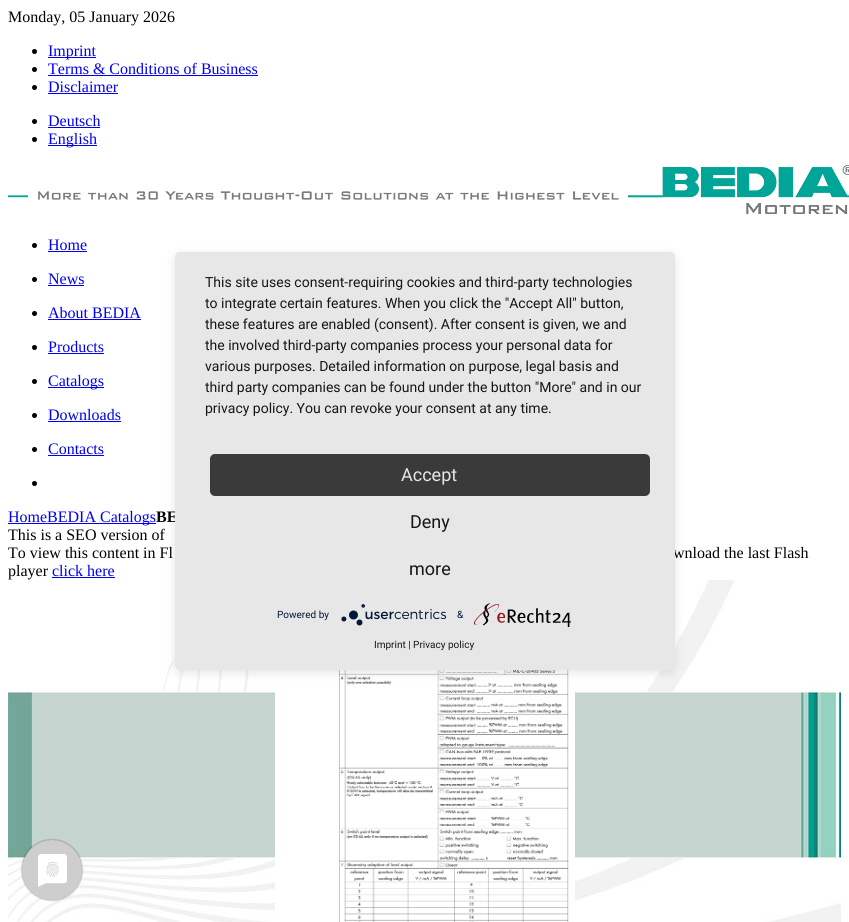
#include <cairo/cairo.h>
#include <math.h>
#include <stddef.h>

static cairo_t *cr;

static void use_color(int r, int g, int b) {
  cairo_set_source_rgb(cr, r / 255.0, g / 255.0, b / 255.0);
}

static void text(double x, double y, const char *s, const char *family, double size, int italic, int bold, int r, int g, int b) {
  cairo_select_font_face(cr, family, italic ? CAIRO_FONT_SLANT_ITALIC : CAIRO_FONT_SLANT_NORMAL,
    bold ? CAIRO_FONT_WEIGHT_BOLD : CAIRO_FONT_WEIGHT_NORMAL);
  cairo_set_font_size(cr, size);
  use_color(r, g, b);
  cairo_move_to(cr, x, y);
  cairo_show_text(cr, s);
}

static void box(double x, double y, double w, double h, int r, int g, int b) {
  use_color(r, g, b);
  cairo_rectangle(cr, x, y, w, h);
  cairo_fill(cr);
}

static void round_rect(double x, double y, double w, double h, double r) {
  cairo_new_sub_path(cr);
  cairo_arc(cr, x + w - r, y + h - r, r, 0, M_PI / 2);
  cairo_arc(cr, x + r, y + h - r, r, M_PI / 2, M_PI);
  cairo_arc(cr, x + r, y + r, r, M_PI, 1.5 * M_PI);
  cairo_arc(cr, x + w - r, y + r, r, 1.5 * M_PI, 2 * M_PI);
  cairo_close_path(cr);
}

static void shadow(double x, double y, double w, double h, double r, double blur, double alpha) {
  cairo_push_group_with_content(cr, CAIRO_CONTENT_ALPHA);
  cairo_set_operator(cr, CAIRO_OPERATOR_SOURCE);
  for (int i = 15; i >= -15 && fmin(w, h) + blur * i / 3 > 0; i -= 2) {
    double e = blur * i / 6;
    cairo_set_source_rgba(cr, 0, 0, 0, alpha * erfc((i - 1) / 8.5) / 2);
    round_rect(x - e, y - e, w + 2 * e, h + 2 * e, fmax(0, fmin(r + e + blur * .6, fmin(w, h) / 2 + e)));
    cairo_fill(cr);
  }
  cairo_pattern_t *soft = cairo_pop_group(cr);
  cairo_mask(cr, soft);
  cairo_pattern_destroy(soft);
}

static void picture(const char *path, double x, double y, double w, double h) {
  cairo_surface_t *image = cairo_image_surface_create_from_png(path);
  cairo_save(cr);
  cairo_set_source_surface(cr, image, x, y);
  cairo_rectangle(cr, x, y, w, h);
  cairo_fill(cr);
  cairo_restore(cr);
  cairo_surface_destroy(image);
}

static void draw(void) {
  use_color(255, 255, 255);
  cairo_paint(cr);
  use_color(0, 0, 0);
  cairo_arc(cr, 34.5, 51.5, 2.5, 0, 2 * M_PI);
  cairo_fill(cr);
  box(48, 57, 48, 1, 0, 0, 238);
  use_color(0, 0, 0);
  cairo_arc(cr, 34.5, 69.5, 2.5, 0, 2 * M_PI);
  cairo_fill(cr);
  box(48, 75, 210, 1, 0, 0, 238);
  use_color(0, 0, 0);
  cairo_arc(cr, 34.5, 87.5, 2.5, 0, 2 * M_PI);
  cairo_fill(cr);
  box(48, 93, 70, 1, 0, 0, 238);
  use_color(0, 0, 0);
  cairo_arc(cr, 34.5, 121.5, 2.5, 0, 2 * M_PI);
  cairo_fill(cr);
  box(48, 127, 52, 1, 0, 0, 238);
  use_color(0, 0, 0);
  cairo_arc(cr, 34.5, 139.5, 2.5, 0, 2 * M_PI);
  cairo_fill(cr);
  box(48, 145, 49, 1, 0, 0, 238);
  picture("img_01.png", 8, 165, 841, 49);
  use_color(0, 0, 0);
  cairo_arc(cr, 34.5, 245.5, 2.5, 0, 2 * M_PI);
  cairo_fill(cr);
  box(48, 251, 39, 1, 0, 0, 238);
  use_color(0, 0, 0);
  cairo_arc(cr, 34.5, 279.5, 2.5, 0, 2 * M_PI);
  cairo_fill(cr);
  box(48, 285, 36, 1, 0, 0, 238);
  use_color(0, 0, 0);
  cairo_arc(cr, 34.5, 313.5, 2.5, 0, 2 * M_PI);
  cairo_fill(cr);
  box(48, 319, 93, 1, 0, 0, 238);
  use_color(0, 0, 0);
  cairo_arc(cr, 34.5, 347.5, 2.5, 0, 2 * M_PI);
  cairo_fill(cr);
  box(48, 353, 56, 1, 0, 0, 238);
  use_color(0, 0, 0);
  cairo_arc(cr, 34.5, 381.5, 2.5, 0, 2 * M_PI);
  cairo_fill(cr);
  box(48, 387, 56, 1, 0, 0, 238);
  use_color(0, 0, 0);
  cairo_arc(cr, 34.5, 415.5, 2.5, 0, 2 * M_PI);
  cairo_fill(cr);
  box(48, 421, 73, 1, 0, 0, 238);
  use_color(0, 0, 0);
  cairo_arc(cr, 34.5, 449.5, 2.5, 0, 2 * M_PI);
  cairo_fill(cr);
  box(48, 455, 56, 1, 0, 0, 238);
  use_color(0, 0, 0);
  cairo_arc(cr, 34.5, 483.5, 2.5, 0, 2 * M_PI);
  cairo_fill(cr);
  box(8, 523, 148, 1, 0, 0, 238);
  box(52, 577, 63, 1, 0, 0, 238);
  picture("img_02.png", 8, 580, 833, 342);
  picture("img_03.png", 275, 670, 300, 252);
  use_color(0, 0, 0);
  shadow(175, 255, 500, 418, 5, 5, 0.1);
  picture("img_06.png", 20, 838, 64, 64);
  text(8, 22, "Monday, 05 January 2026", "Liberation Serif", 16, 0, 0, 0, 0, 0);
  text(48, 56, "Imprint", "Liberation Serif", 16, 0, 0, 0, 0, 238);
  text(48, 74, "Terms & Conditions of Business", "Liberation Serif", 16, 0, 0, 0, 0, 238);
  text(48, 92, "Disclaimer", "Liberation Serif", 16, 0, 0, 0, 0, 238);
  text(48, 126, "Deutsch", "Liberation Serif", 16, 0, 0, 0, 0, 238);
  text(48, 144, "English", "Liberation Serif", 16, 0, 0, 0, 0, 238);
  text(48, 250, "Home", "Liberation Serif", 16, 0, 0, 0, 0, 238);
  text(48, 284, "News", "Liberation Serif", 16, 0, 0, 0, 0, 238);
  text(48, 318, "About BEDIA", "Liberation Serif", 16, 0, 0, 0, 0, 238);
  text(48, 352, "Products", "Liberation Serif", 16, 0, 0, 0, 0, 238);
  text(48, 386, "Catalogs", "Liberation Serif", 16, 0, 0, 0, 0, 238);
  text(48, 420, "Downloads", "Liberation Serif", 16, 0, 0, 0, 0, 238);
  text(48, 454, "Contacts", "Liberation Serif", 16, 0, 0, 0, 0, 238);
  text(8, 522, "HomeBEDIA Catalogs", "Liberation Serif", 16, 0, 0, 0, 0, 238);
  text(156, 522, "BE", "Liberation Serif", 16, 0, 1, 0, 0, 0);
  text(8, 540, "This is a SEO version of", "Liberation Serif", 16, 0, 0, 0, 0, 0);
  text(8, 558, "To view this content in Fl", "Liberation Serif", 16, 0, 0, 0, 0, 0);
  text(673, 558, "wnload the last Flash", "Liberation Serif", 16, 0, 0, 0, 0, 0);
  text(8, 576, "player", "Liberation Serif", 16, 0, 0, 0, 0, 0);
  text(52, 576, "click here", "Liberation Serif", 16, 0, 0, 0, 0, 238);
  use_color(231, 231, 231);
  round_rect(175, 252, 500, 418, 5);
  cairo_fill(cr);
  text(205, 287, "This site uses consent-requiring cookies and third-party technologies", "Roboto", 14, 0, 0, 22, 22, 22);
  text(205, 308, "to integrate certain features. When you click the \"Accept All\" button,", "Roboto", 14, 0, 0, 22, 22, 22);
  text(205, 329, "these features are enabled (consent). After consent is given, we and", "Roboto", 14, 0, 0, 22, 22, 22);
  text(205, 350, "the involved third-party companies process your personal data for", "Roboto", 14, 0, 0, 22, 22, 22);
  text(205, 371, "various purposes. Detailed information on purpose, legal basis and", "Roboto", 14, 0, 0, 22, 22, 22);
  text(205, 392, "third party companies can be found under the button \"More\" and in our", "Roboto", 14, 0, 0, 22, 22, 22);
  text(205, 413, "privacy policy. You can revoke your consent at any time.", "Roboto", 14, 0, 0, 22, 22, 22);
  use_color(58, 58, 58);
  round_rect(210, 454, 440, 42, 5);
  cairo_fill(cr);
  text(401, 481, "Accept", "Roboto", 18, 0, 0, 230, 230, 230);
  text(410, 528, "Deny", "Roboto", 18, 0, 0, 22, 22, 22);
  text(409, 575, "more", "Roboto", 18, 0, 0, 22, 22, 22);
  text(277, 618, "Powered by", "Roboto", 10, 0, 0, 2, 24, 54);
  picture("img_04.png", 341, 604, 106, 22);
  text(457, 618, "&", "Roboto", 10, 0, 0, 2, 24, 54);
  picture("img_05.png", 474, 603, 97, 24);
  text(374, 648, "Imprint | Privacy policy", "Roboto", 10, 0, 0, 22, 22, 22);
}

int main(void) {
  cairo_surface_t *surface = cairo_image_surface_create(CAIRO_FORMAT_RGB24, 849, 922);
  cr = cairo_create(surface);
  cairo_font_options_t *options = cairo_font_options_create();
  cairo_font_options_set_hint_metrics(options, CAIRO_HINT_METRICS_OFF);
  cairo_font_options_set_hint_style(options, CAIRO_HINT_STYLE_NONE);
  cairo_set_font_options(cr, options);
  cairo_set_miter_limit(cr, 4);
  draw();
  cairo_surface_write_to_png(surface, "out.png");
  cairo_font_options_destroy(options);
  cairo_destroy(cr);
  cairo_surface_destroy(surface);
  return 0;
}
